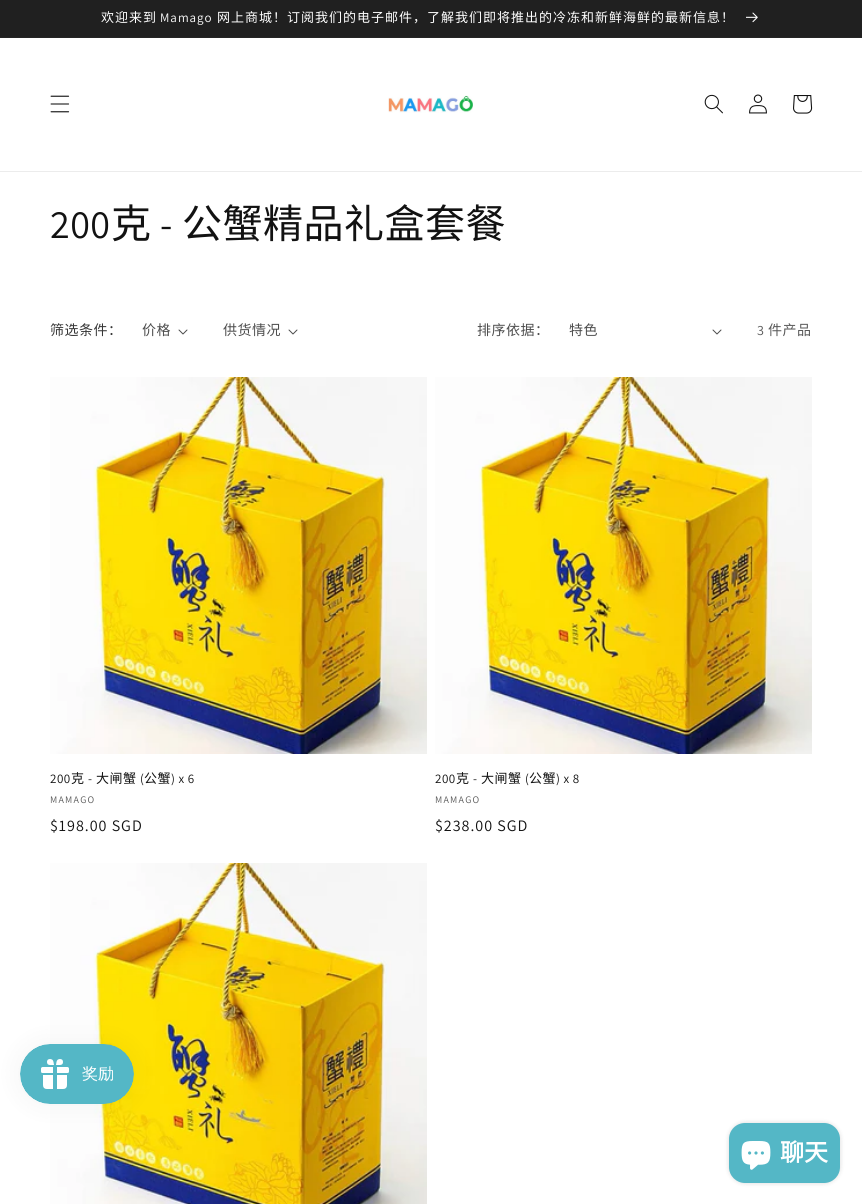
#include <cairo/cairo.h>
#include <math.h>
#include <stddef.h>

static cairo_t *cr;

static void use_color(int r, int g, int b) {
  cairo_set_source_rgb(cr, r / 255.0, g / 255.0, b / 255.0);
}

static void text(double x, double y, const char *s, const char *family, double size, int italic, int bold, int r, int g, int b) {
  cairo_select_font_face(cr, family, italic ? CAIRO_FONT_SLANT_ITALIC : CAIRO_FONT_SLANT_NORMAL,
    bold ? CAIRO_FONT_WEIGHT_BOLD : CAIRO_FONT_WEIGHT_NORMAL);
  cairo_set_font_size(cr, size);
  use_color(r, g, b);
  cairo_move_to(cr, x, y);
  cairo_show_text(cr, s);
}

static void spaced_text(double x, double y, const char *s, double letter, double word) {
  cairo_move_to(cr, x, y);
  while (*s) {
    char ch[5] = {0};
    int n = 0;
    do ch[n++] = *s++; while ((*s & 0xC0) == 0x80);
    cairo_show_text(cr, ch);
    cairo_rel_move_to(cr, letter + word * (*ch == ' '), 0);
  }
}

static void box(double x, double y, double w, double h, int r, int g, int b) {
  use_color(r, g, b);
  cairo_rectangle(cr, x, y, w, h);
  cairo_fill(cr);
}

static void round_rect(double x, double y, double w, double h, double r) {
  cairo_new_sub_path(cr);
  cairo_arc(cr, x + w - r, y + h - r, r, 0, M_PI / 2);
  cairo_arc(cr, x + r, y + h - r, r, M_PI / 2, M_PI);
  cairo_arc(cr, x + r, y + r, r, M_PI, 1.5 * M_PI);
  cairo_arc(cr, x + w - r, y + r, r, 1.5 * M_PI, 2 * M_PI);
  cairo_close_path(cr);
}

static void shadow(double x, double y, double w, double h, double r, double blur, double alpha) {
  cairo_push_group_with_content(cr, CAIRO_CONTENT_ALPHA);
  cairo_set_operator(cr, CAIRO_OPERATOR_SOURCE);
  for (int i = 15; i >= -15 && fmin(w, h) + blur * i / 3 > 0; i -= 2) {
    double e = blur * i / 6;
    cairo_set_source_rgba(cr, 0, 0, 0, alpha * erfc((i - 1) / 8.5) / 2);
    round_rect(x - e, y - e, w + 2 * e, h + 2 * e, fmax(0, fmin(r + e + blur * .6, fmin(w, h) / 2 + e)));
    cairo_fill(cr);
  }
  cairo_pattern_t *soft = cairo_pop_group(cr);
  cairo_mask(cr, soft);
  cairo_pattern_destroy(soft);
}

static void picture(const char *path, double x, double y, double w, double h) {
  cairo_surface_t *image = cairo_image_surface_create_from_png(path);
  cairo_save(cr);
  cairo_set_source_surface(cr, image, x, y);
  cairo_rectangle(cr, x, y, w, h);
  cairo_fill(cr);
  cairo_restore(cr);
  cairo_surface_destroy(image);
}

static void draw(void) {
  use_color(255, 255, 255);
  cairo_paint(cr);
  box(0, 37, 862, 1, 37, 37, 37);
  box(0, 0, 862, 37, 32, 32, 32);
  picture("img_01.png", 746, 12, 12, 11);
  box(0, 171, 862, 1, 236, 236, 236);
  picture("img_02.png", 50, 95, 20, 18);
  picture("img_03.png", 388, 95, 85, 18);
  picture("img_04.png", 704, 94, 19, 20);
  picture("img_05.png", 749, 94, 18, 20);
  picture("img_06.png", 793, 95, 20, 19);
  picture("img_07.png", 178, 329, 10, 6);
  picture("img_07.png", 288, 329, 10, 6);
  picture("img_07.png", 712, 329, 10, 6);
  picture("img_08.png", 50, 377, 377, 377);
  picture("img_08.png", 435, 377, 377, 377);
  picture("img_09.png", 50, 863, 377, 341);
  use_color(0, 0, 0);
  shadow(20, 1044, 114, 60, 30, 12.5, 0.05);
  picture("img_10.png", 20, 1044, 114, 60);
  shadow(729, 1123, 111, 60, 16, 2.5, 0.15);
  use_color(84, 183, 198);
  round_rect(729, 1123, 111, 60, 16);
  cairo_fill(cr);
  picture("img_11.png", 741, 1141, 30, 29);
  cairo_select_font_face(cr, "Noto Sans CJK SC", CAIRO_FONT_SLANT_NORMAL, CAIRO_FONT_WEIGHT_NORMAL);
  cairo_set_font_size(cr, 13);
  use_color(255, 255, 255);
  spaced_text(101, 22, "欢迎来到", 1, 0);
  cairo_select_font_face(cr, "Assistant", CAIRO_FONT_SLANT_NORMAL, CAIRO_FONT_WEIGHT_NORMAL);
  spaced_text(160, 22, "Mamago", 1, 0);
  cairo_select_font_face(cr, "Noto Sans CJK SC", CAIRO_FONT_SLANT_NORMAL, CAIRO_FONT_WEIGHT_NORMAL);
  spaced_text(217, 22, "网上商城！订阅我们的电子邮件，了解我们即将推出的冷冻和新鲜海鲜的最新信息！", 1, 0);
  cairo_select_font_face(cr, "Assistant", CAIRO_FONT_SLANT_NORMAL, CAIRO_FONT_WEIGHT_NORMAL);
  cairo_set_font_size(cr, 40);
  use_color(18, 18, 18);
  spaced_text(50, 238, "200", 0.5, 0);
  cairo_select_font_face(cr, "Noto Sans CJK SC", CAIRO_FONT_SLANT_NORMAL, CAIRO_FONT_WEIGHT_NORMAL);
  spaced_text(111, 238, "克", 0.5, 0);
  cairo_select_font_face(cr, "Assistant", CAIRO_FONT_SLANT_NORMAL, CAIRO_FONT_WEIGHT_NORMAL);
  spaced_text(160, 238, "-", 0.5, 0);
  cairo_select_font_face(cr, "Noto Sans CJK SC", CAIRO_FONT_SLANT_NORMAL, CAIRO_FONT_WEIGHT_NORMAL);
  spaced_text(182, 238, "公蟹精品礼盒套餐", 0.5, 0);
  cairo_set_font_size(cr, 14);
  use_color(54, 54, 54);
  spaced_text(50, 335, "筛选条件：", 0.5, 0);
  use_color(77, 77, 77);
  spaced_text(142, 335, "价格", 0.5, 0);
  spaced_text(223, 335, "供货情况", 0.5, 0);
  spaced_text(477, 335, "排序依据：", 0.5, 0);
  spaced_text(569, 335, "特色", 0.5, 0);
  cairo_select_font_face(cr, "Assistant", CAIRO_FONT_SLANT_NORMAL, CAIRO_FONT_WEIGHT_NORMAL);
  use_color(89, 89, 89);
  spaced_text(757, 335, "3", 0.5, 0);
  cairo_select_font_face(cr, "Noto Sans CJK SC", CAIRO_FONT_SLANT_NORMAL, CAIRO_FONT_WEIGHT_NORMAL);
  spaced_text(768, 335, "件产品", 0.5, 0);
  cairo_select_font_face(cr, "Assistant", CAIRO_FONT_SLANT_NORMAL, CAIRO_FONT_WEIGHT_NORMAL);
  cairo_set_font_size(cr, 13);
  use_color(18, 18, 18);
  spaced_text(50, 783, "200", 0.5, 0);
  cairo_select_font_face(cr, "Noto Sans CJK SC", CAIRO_FONT_SLANT_NORMAL, CAIRO_FONT_WEIGHT_NORMAL);
  spaced_text(71, 783, "克", 0.5, 0);
  cairo_select_font_face(cr, "Assistant", CAIRO_FONT_SLANT_NORMAL, CAIRO_FONT_WEIGHT_NORMAL);
  spaced_text(88, 783, "-", 0.5, 0);
  cairo_select_font_face(cr, "Noto Sans CJK SC", CAIRO_FONT_SLANT_NORMAL, CAIRO_FONT_WEIGHT_NORMAL);
  spaced_text(96, 783, "大闸蟹", 0.5, 0);
  cairo_select_font_face(cr, "Assistant", CAIRO_FONT_SLANT_NORMAL, CAIRO_FONT_WEIGHT_NORMAL);
  spaced_text(140, 783, "(", 0.5, 0);
  cairo_select_font_face(cr, "Noto Sans CJK SC", CAIRO_FONT_SLANT_NORMAL, CAIRO_FONT_WEIGHT_NORMAL);
  spaced_text(144, 783, "公蟹", 0.5, 0);
  cairo_select_font_face(cr, "Assistant", CAIRO_FONT_SLANT_NORMAL, CAIRO_FONT_WEIGHT_NORMAL);
  spaced_text(171, 783, ") x 6", 0.5, 0);
  cairo_set_font_size(cr, 10);
  use_color(89, 89, 89);
  spaced_text(50, 803, "MAMAGO", 1.25, 0);
  cairo_set_font_size(cr, 16);
  use_color(18, 18, 18);
  spaced_text(50, 831, "$198.00 SGD", 1, 0);
  cairo_set_font_size(cr, 13);
  spaced_text(435, 783, "200", 0.5, 0);
  cairo_select_font_face(cr, "Noto Sans CJK SC", CAIRO_FONT_SLANT_NORMAL, CAIRO_FONT_WEIGHT_NORMAL);
  spaced_text(456, 783, "克", 0.5, 0);
  cairo_select_font_face(cr, "Assistant", CAIRO_FONT_SLANT_NORMAL, CAIRO_FONT_WEIGHT_NORMAL);
  spaced_text(473, 783, "-", 0.5, 0);
  cairo_select_font_face(cr, "Noto Sans CJK SC", CAIRO_FONT_SLANT_NORMAL, CAIRO_FONT_WEIGHT_NORMAL);
  spaced_text(481, 783, "大闸蟹", 0.5, 0);
  cairo_select_font_face(cr, "Assistant", CAIRO_FONT_SLANT_NORMAL, CAIRO_FONT_WEIGHT_NORMAL);
  spaced_text(525, 783, "(", 0.5, 0);
  cairo_select_font_face(cr, "Noto Sans CJK SC", CAIRO_FONT_SLANT_NORMAL, CAIRO_FONT_WEIGHT_NORMAL);
  spaced_text(529, 783, "公蟹", 0.5, 0);
  cairo_select_font_face(cr, "Assistant", CAIRO_FONT_SLANT_NORMAL, CAIRO_FONT_WEIGHT_NORMAL);
  spaced_text(556, 783, ") x 8", 0.5, 0);
  cairo_set_font_size(cr, 10);
  use_color(89, 89, 89);
  spaced_text(435, 803, "MAMAGO", 1.25, 0);
  cairo_set_font_size(cr, 16);
  use_color(18, 18, 18);
  spaced_text(435, 831, "$238.00 SGD", 1, 0);
  text(780, 1161, "聊天", "Noto Sans CJK SC", 24, 0, 1, 255, 255, 255);
}

int main(void) {
  cairo_surface_t *surface = cairo_image_surface_create(CAIRO_FORMAT_RGB24, 862, 1204);
  cr = cairo_create(surface);
  cairo_font_options_t *options = cairo_font_options_create();
  cairo_font_options_set_hint_metrics(options, CAIRO_HINT_METRICS_OFF);
  cairo_font_options_set_hint_style(options, CAIRO_HINT_STYLE_NONE);
  cairo_set_font_options(cr, options);
  cairo_set_miter_limit(cr, 4);
  draw();
  cairo_surface_write_to_png(surface, "out.png");
  cairo_font_options_destroy(options);
  cairo_destroy(cr);
  cairo_surface_destroy(surface);
  return 0;
}
